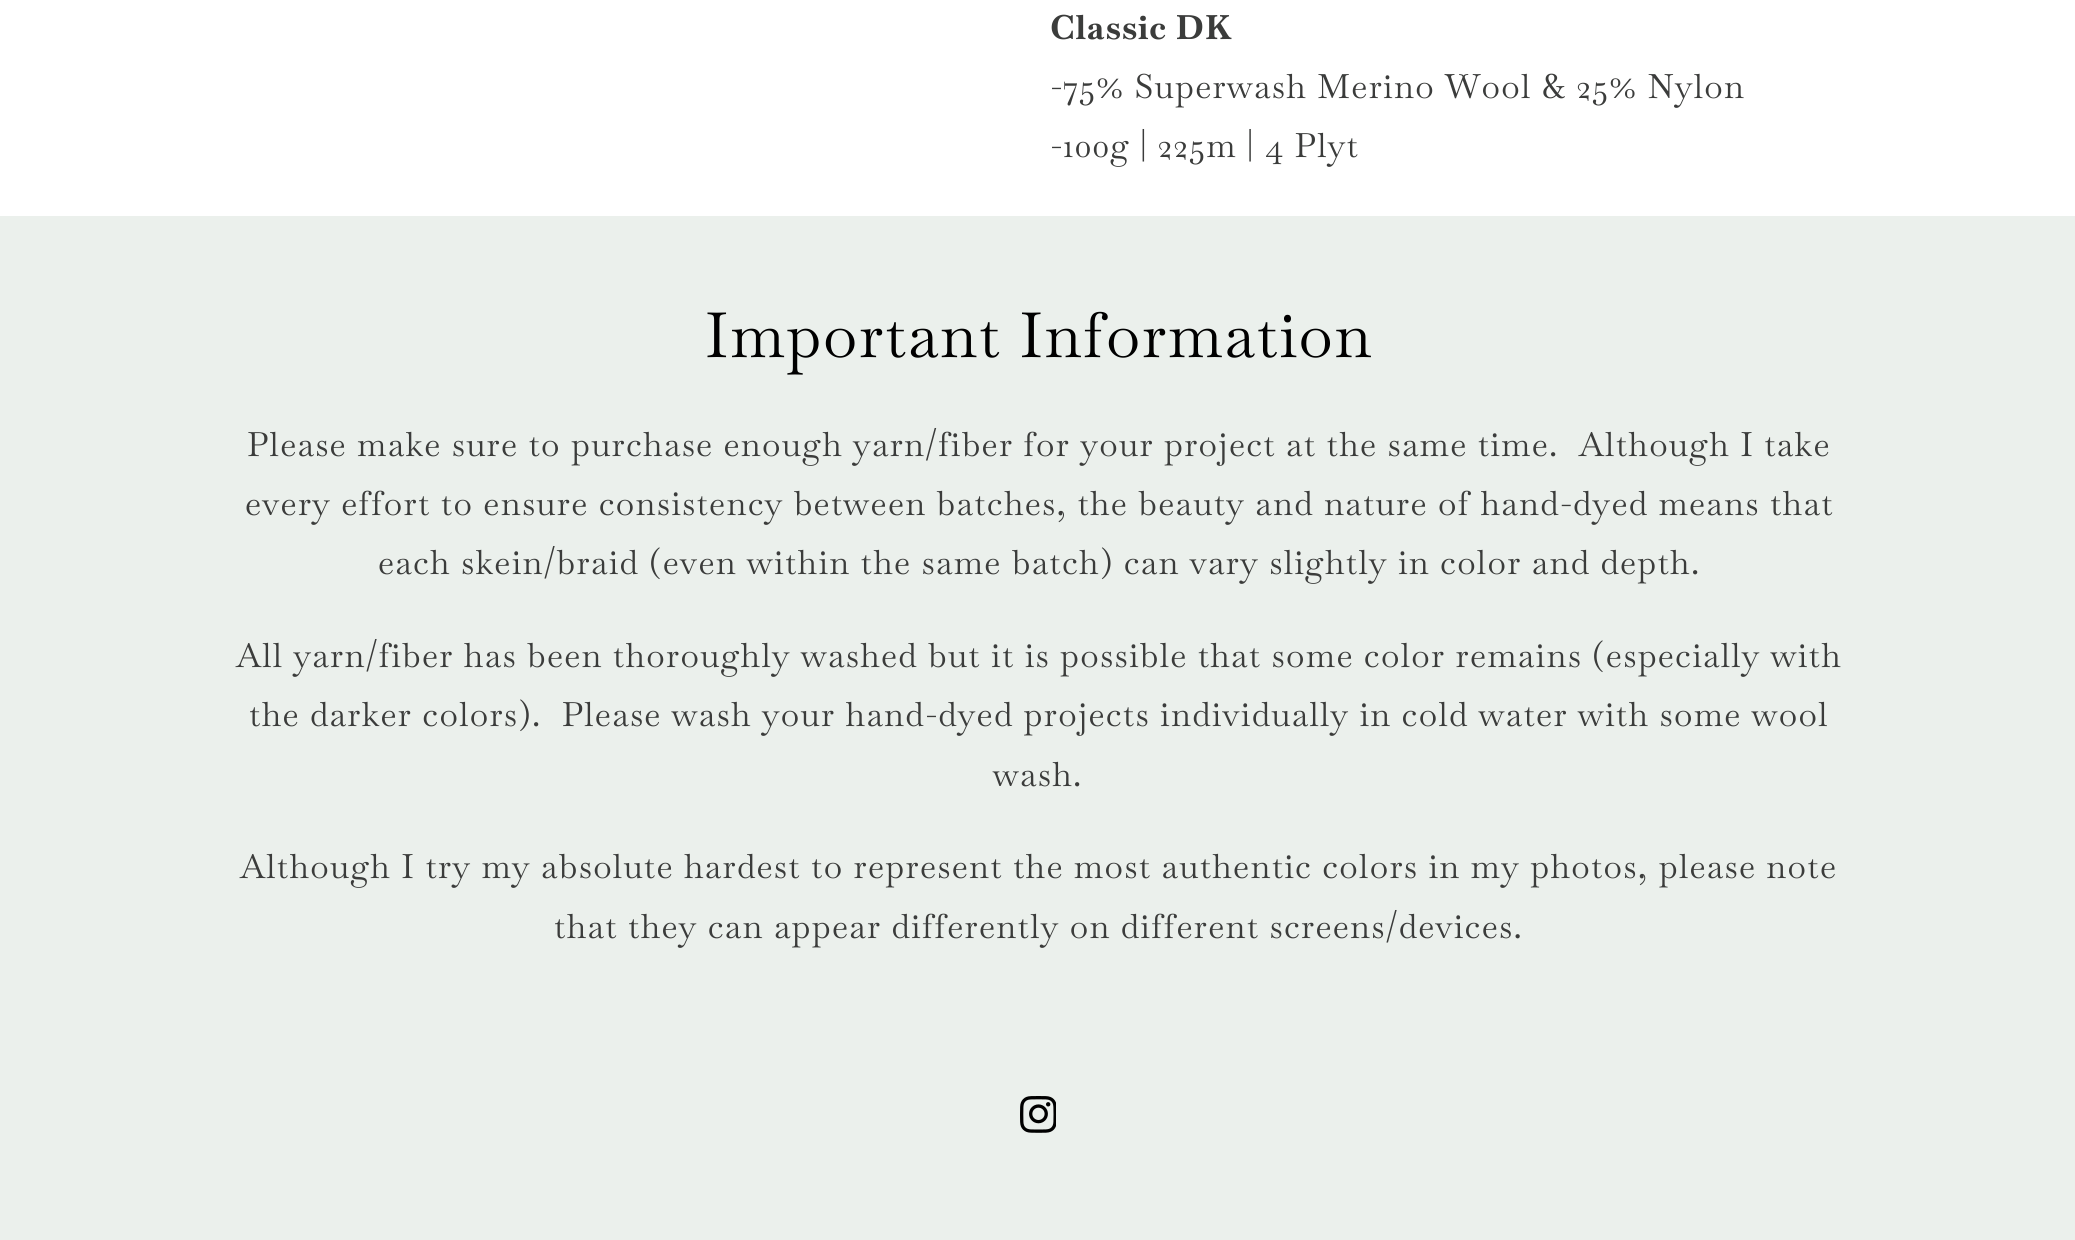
#include <cairo/cairo.h>
#include <math.h>
#include <stddef.h>

static cairo_t *cr;

static void use_color(int r, int g, int b) {
  cairo_set_source_rgb(cr, r / 255.0, g / 255.0, b / 255.0);
}

static void spaced_text(double x, double y, const char *s, double letter, double word) {
  cairo_move_to(cr, x, y);
  while (*s) {
    char ch[5] = {0};
    int n = 0;
    do ch[n++] = *s++; while ((*s & 0xC0) == 0x80);
    cairo_show_text(cr, ch);
    cairo_rel_move_to(cr, letter + word * (*ch == ' '), 0);
  }
}

static void box(double x, double y, double w, double h, int r, int g, int b) {
  use_color(r, g, b);
  cairo_rectangle(cr, x, y, w, h);
  cairo_fill(cr);
}

static void picture(const char *path, double x, double y, double w, double h) {
  cairo_surface_t *image = cairo_image_surface_create_from_png(path);
  cairo_save(cr);
  cairo_set_source_surface(cr, image, x, y);
  cairo_rectangle(cr, x, y, w, h);
  cairo_fill(cr);
  cairo_restore(cr);
  cairo_surface_destroy(image);
}

static void draw(void) {
  use_color(255, 255, 255);
  cairo_paint(cr);
  box(0, 216, 2075, 1024, 235, 240, 236);
  picture("img_01.png", 1020, 1096, 36, 37);
  cairo_select_font_face(cr, "Baskervville", CAIRO_FONT_SLANT_NORMAL, CAIRO_FONT_WEIGHT_BOLD);
  cairo_set_font_size(cr, 33.6);
  use_color(59, 60, 59);
  spaced_text(1050, 39, "Classic DK", 1.26, 0);
  cairo_select_font_face(cr, "Baskervville", CAIRO_FONT_SLANT_NORMAL, CAIRO_FONT_WEIGHT_NORMAL);
  spaced_text(1050, 98, "-75% Superwash Merino Wool & 25% Nylon", 1.26, 0);
  spaced_text(1050, 157, "-100g | 225m | 4 Plyt", 1.26, 0);
  cairo_set_font_size(cr, 62.4);
  use_color(0, 0, 0);
  spaced_text(705, 357, "Important Information", 1.6, 0);
  cairo_set_font_size(cr, 33.6);
  use_color(59, 60, 59);
  spaced_text(247, 456, "Please make sure to purchase enough yarn/fiber for your project at the same time.  Although I take", 1.26, 0);
  spaced_text(245, 515, "every effort to ensure consistency between batches, the beauty and nature of hand-dyed means that", 1.26, 0);
  spaced_text(378, 574, "each skein/braid (even within the same batch) can vary slightly in color and depth.", 1.26, 0);
  spaced_text(236, 667, "All yarn/fiber has been thoroughly washed but it is possible that some color remains (especially with", 1.26, 0);
  spaced_text(249, 726, "the darker colors).  Please wash your hand-dyed projects individually in cold water with some wool", 1.26, 0);
  spaced_text(993, 786, "wash.", 1.26, 0);
  spaced_text(240, 878, "Although I try my absolute hardest to represent the most authentic colors in my photos, please note", 1.26, 0);
  spaced_text(554, 938, "that they can appear differently on different screens/devices.", 1.26, 0);
}

int main(void) {
  cairo_surface_t *surface = cairo_image_surface_create(CAIRO_FORMAT_RGB24, 2075, 1240);
  cr = cairo_create(surface);
  cairo_font_options_t *options = cairo_font_options_create();
  cairo_font_options_set_hint_metrics(options, CAIRO_HINT_METRICS_OFF);
  cairo_font_options_set_hint_style(options, CAIRO_HINT_STYLE_NONE);
  cairo_set_font_options(cr, options);
  cairo_set_miter_limit(cr, 4);
  draw();
  cairo_surface_write_to_png(surface, "out.png");
  cairo_font_options_destroy(options);
  cairo_destroy(cr);
  cairo_surface_destroy(surface);
  return 0;
}
